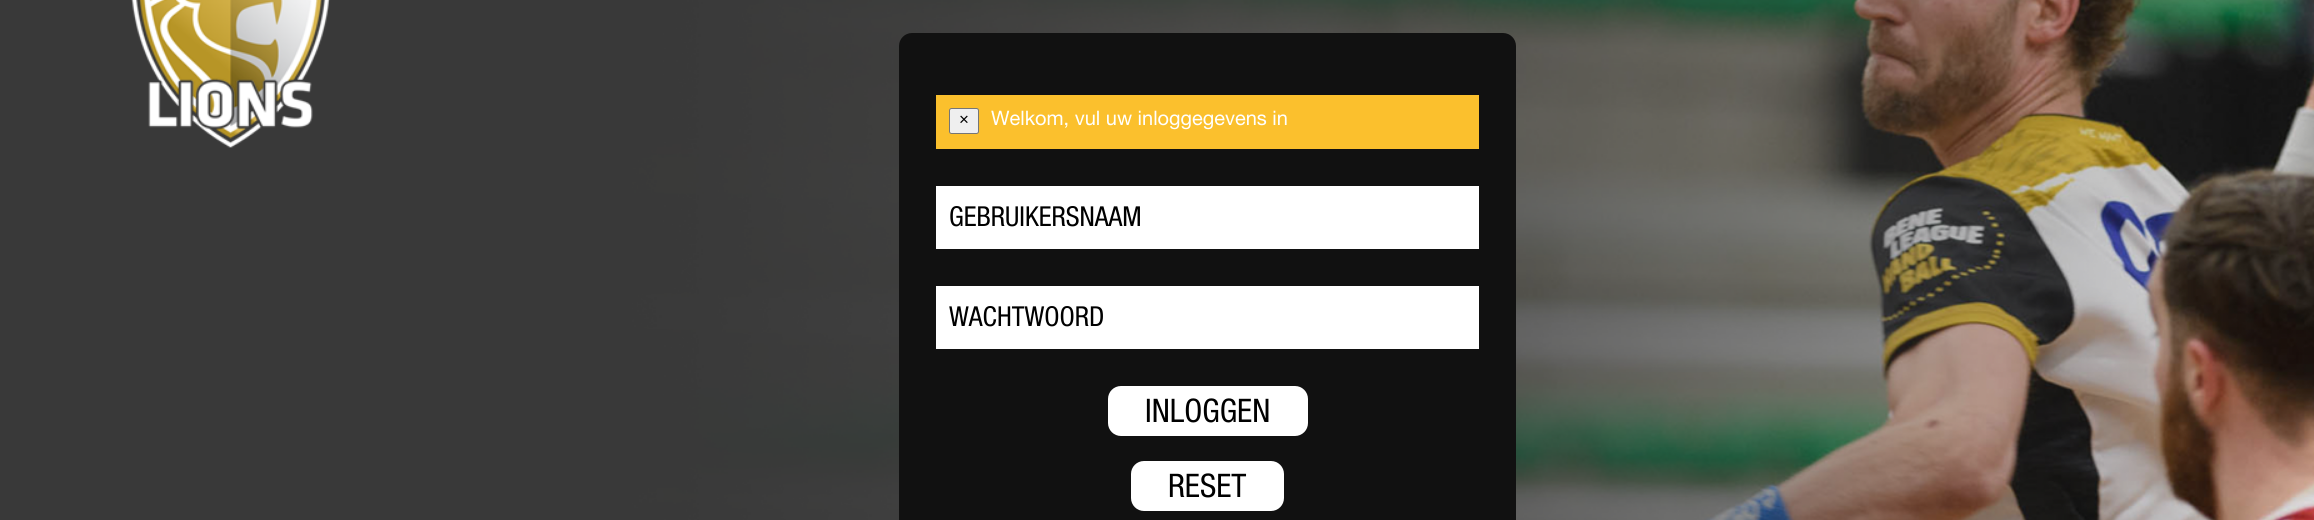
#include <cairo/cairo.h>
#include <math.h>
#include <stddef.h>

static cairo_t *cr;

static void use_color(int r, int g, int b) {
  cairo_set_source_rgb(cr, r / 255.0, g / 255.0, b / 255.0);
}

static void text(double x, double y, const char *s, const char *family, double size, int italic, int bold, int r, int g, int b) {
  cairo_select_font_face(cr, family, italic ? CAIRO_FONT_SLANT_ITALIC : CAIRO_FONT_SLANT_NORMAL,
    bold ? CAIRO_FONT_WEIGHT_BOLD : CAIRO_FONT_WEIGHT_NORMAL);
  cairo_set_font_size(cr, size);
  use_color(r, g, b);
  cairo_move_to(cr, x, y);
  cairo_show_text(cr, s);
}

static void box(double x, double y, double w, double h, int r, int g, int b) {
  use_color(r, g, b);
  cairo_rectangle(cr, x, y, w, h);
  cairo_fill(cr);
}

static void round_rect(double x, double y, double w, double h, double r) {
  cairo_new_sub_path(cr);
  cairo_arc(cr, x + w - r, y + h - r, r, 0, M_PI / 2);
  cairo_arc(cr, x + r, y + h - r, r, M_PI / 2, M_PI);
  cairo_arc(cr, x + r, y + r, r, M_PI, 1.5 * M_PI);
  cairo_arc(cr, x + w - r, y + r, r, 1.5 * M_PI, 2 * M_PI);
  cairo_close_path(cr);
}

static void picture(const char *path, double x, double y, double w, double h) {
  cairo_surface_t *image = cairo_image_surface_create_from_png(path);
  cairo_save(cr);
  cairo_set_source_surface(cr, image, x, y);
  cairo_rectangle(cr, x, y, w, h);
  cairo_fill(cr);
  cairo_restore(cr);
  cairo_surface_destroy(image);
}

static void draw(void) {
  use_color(255, 255, 255);
  cairo_paint(cr);
  picture("img_01.png", 0, 0, 2314, 520);
  use_color(17, 17, 17);
  round_rect(899, 33, 617, 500, 13);
  cairo_fill(cr);
  box(936, 95, 543, 54, 251, 192, 45);
  use_color(239, 239, 239);
  round_rect(949.5, 108.5, 29, 25, 2);
  cairo_fill_preserve(cr);
  use_color(118, 118, 118);
  cairo_set_line_width(cr, 1);
  cairo_stroke(cr);
  box(936, 186, 543, 63, 255, 255, 255);
  box(936, 286, 543, 63, 255, 255, 255);
  round_rect(1108, 386, 200, 50, 13);
  cairo_fill(cr);
  round_rect(1131, 461, 153, 50, 13);
  cairo_fill(cr);
  text(959, 125, "×", "Liberation Sans", 17, 0, 0, 0, 0, 0);
  text(991, 125, "Welkom, vul uw inloggegevens in", "Helvetica Neue", 20, 0, 0, 255, 255, 255);
  text(949, 226, "GEBRUIKERSNAAM", "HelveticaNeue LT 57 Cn", 27.5, 0, 0, 0, 0, 0);
  text(949, 326, "WACHTWOORD", "HelveticaNeue LT 57 Cn", 27.5, 0, 0, 0, 0, 0);
  text(1145, 422, "INLOGGEN", "HelveticaNeue LT 57 Cn", 32.5, 0, 0, 0, 0, 0);
  text(1168, 497, "RESET", "HelveticaNeue LT 57 Cn", 32.5, 0, 0, 0, 0, 0);
}

int main(void) {
  cairo_surface_t *surface = cairo_image_surface_create(CAIRO_FORMAT_RGB24, 2314, 520);
  cr = cairo_create(surface);
  cairo_font_options_t *options = cairo_font_options_create();
  cairo_font_options_set_hint_metrics(options, CAIRO_HINT_METRICS_OFF);
  cairo_font_options_set_hint_style(options, CAIRO_HINT_STYLE_NONE);
  cairo_set_font_options(cr, options);
  cairo_set_miter_limit(cr, 4);
  draw();
  cairo_surface_write_to_png(surface, "out.png");
  cairo_font_options_destroy(options);
  cairo_destroy(cr);
  cairo_surface_destroy(surface);
  return 0;
}
